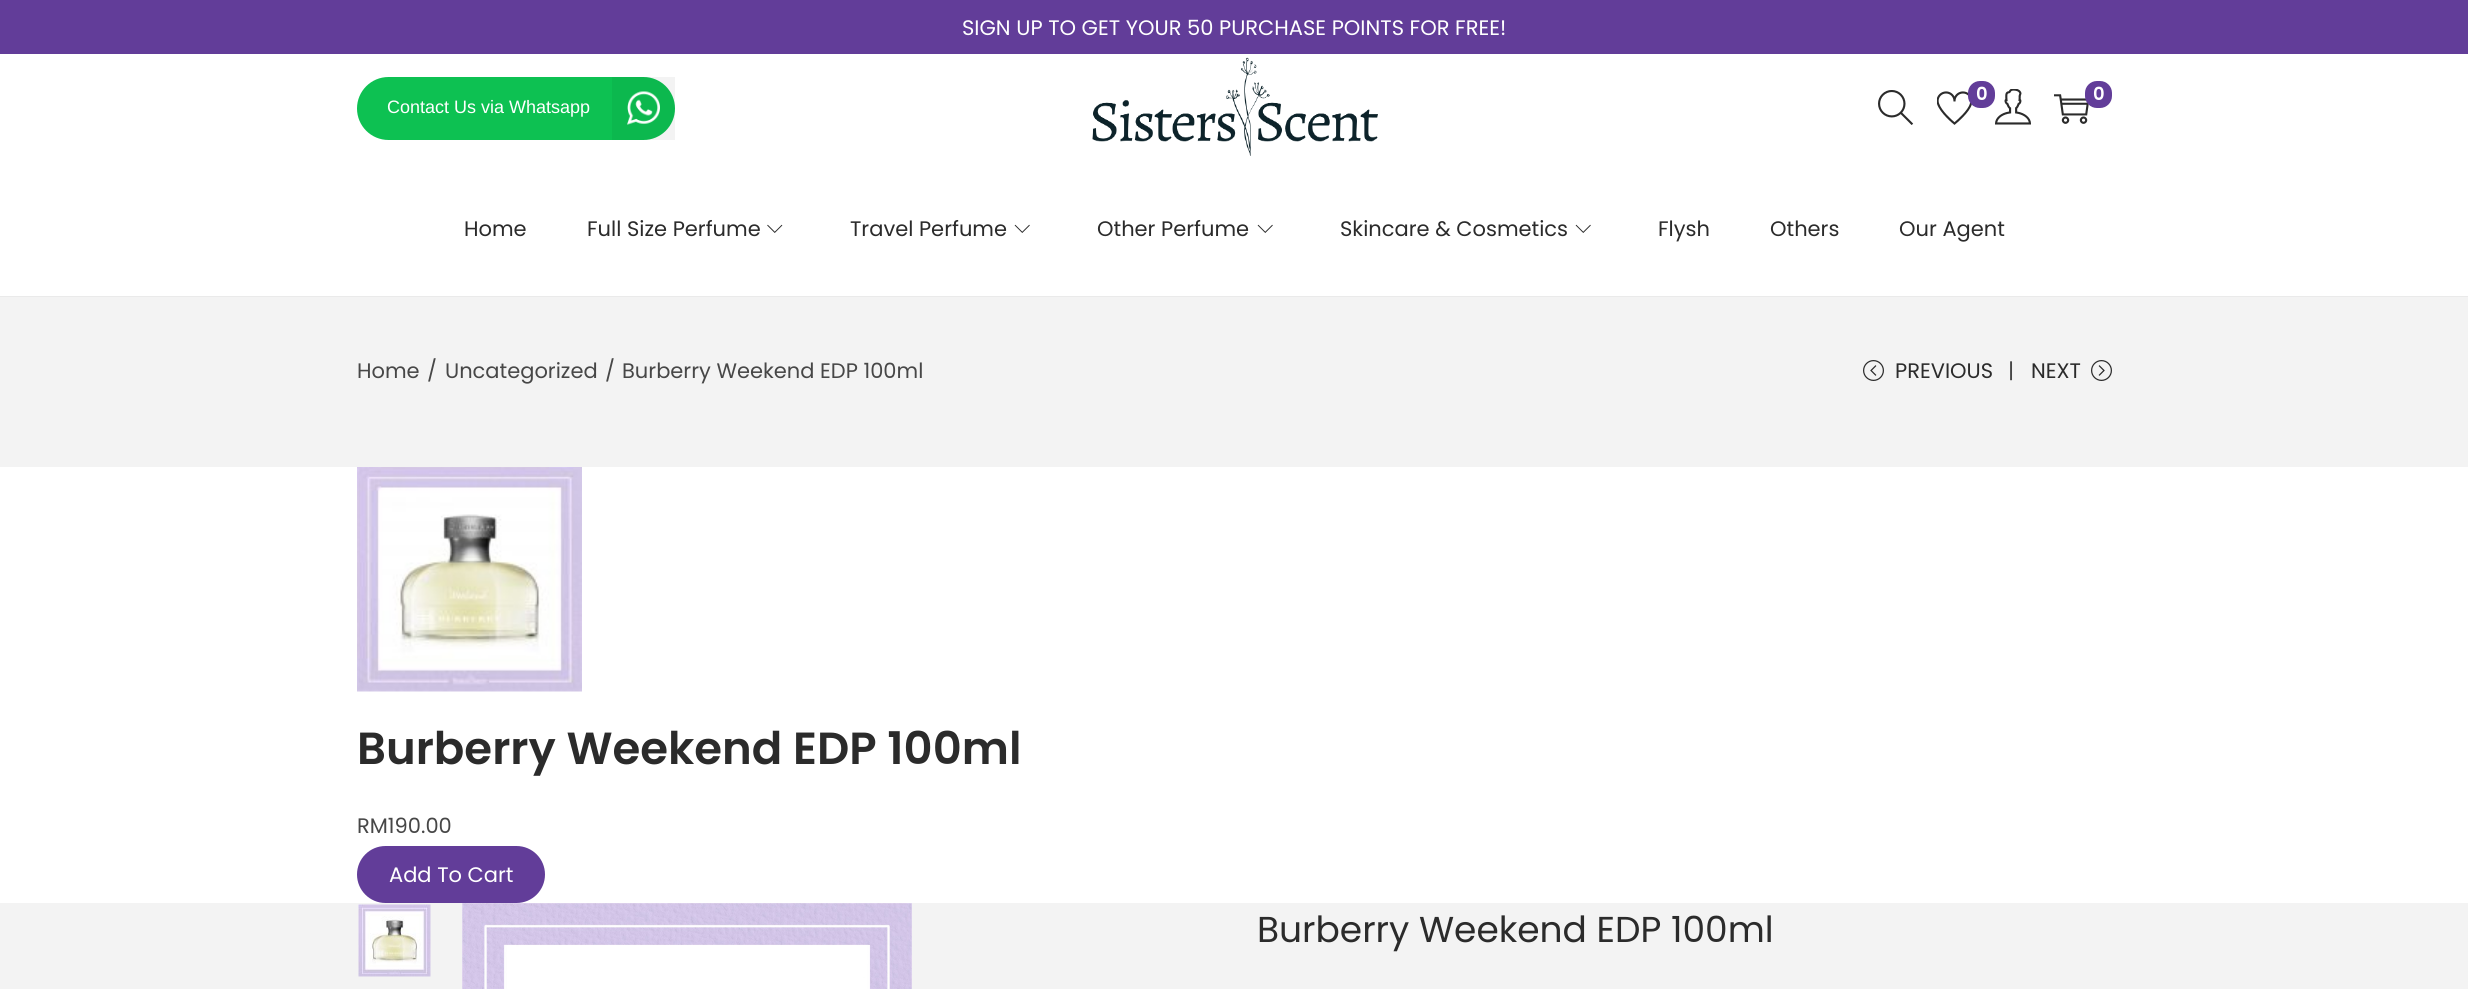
#include <cairo/cairo.h>
#include <math.h>
#include <stddef.h>

static cairo_t *cr;

static void use_color(int r, int g, int b) {
  cairo_set_source_rgb(cr, r / 255.0, g / 255.0, b / 255.0);
}

static void text(double x, double y, const char *s, const char *family, double size, int italic, int bold, int r, int g, int b) {
  cairo_select_font_face(cr, family, italic ? CAIRO_FONT_SLANT_ITALIC : CAIRO_FONT_SLANT_NORMAL,
    bold ? CAIRO_FONT_WEIGHT_BOLD : CAIRO_FONT_WEIGHT_NORMAL);
  cairo_set_font_size(cr, size);
  use_color(r, g, b);
  cairo_move_to(cr, x, y);
  cairo_show_text(cr, s);
}

static void box(double x, double y, double w, double h, int r, int g, int b) {
  use_color(r, g, b);
  cairo_rectangle(cr, x, y, w, h);
  cairo_fill(cr);
}

static void round_rect(double x, double y, double w, double h, double r) {
  cairo_new_sub_path(cr);
  cairo_arc(cr, x + w - r, y + h - r, r, 0, M_PI / 2);
  cairo_arc(cr, x + r, y + h - r, r, M_PI / 2, M_PI);
  cairo_arc(cr, x + r, y + r, r, M_PI, 1.5 * M_PI);
  cairo_arc(cr, x + w - r, y + r, r, 1.5 * M_PI, 2 * M_PI);
  cairo_close_path(cr);
}

static void picture(const char *path, double x, double y, double w, double h) {
  cairo_surface_t *image = cairo_image_surface_create_from_png(path);
  cairo_save(cr);
  cairo_set_source_surface(cr, image, x, y);
  cairo_rectangle(cr, x, y, w, h);
  cairo_fill(cr);
  cairo_restore(cr);
  cairo_surface_destroy(image);
}

static void draw(void) {
  use_color(255, 255, 255);
  cairo_paint(cr);
  box(0, 0, 2468, 54, 98, 61, 153);
  box(0, 296, 2468, 1, 234, 234, 234);
  picture("img_01.png", 1092, 57, 286, 99);
  picture("img_02.png", 1878, 90, 36, 35);
  picture("img_03.png", 1937, 91, 35, 34);
  use_color(98, 61, 153);
  round_rect(1968, 81, 27, 27, 12);
  cairo_fill(cr);
  picture("img_04.png", 1995, 89, 36, 36);
  picture("img_05.png", 2054, 94, 35, 30);
  round_rect(2085, 81, 27, 27, 12);
  cairo_fill(cr);
  use_color(13, 193, 82);
  round_rect(357, 77, 318, 63, 31.5);
  cairo_fill(cr);
  cairo_set_source_rgba(cr, 0, 0, 0, 0.05);
  cairo_rectangle(cr, 612, 77, 63, 63);
  cairo_fill(cr);
  picture("img_06.png", 627, 91, 33, 34);
  picture("img_07.png", 767, 224, 16, 9);
  picture("img_08.png", 1014, 224, 16, 9);
  picture("img_08.png", 1257, 224, 16, 9);
  picture("img_08.png", 1575, 224, 16, 9);
  box(0, 297, 2468, 170, 243, 243, 243);
  picture("img_09.png", 1863, 360, 21, 21);
  picture("img_10.png", 2091, 360, 21, 21);
  picture("img_11.png", 357, 467, 225, 225);
  use_color(98, 61, 153);
  round_rect(357, 846, 188, 57, 28.5);
  cairo_fill(cr);
  box(0, 903, 2468, 86, 243, 243, 243);
  picture("img_12.png", 358, 904, 73, 73);
  picture("img_13.png", 462, 903, 450, 86);
  text(962, 35, "SIGN UP TO GET YOUR 50 PURCHASE POINTS FOR FREE!", "Poppins", 21, 0, 0, 255, 255, 255);
  text(1976, 100, "0", "Poppins SemiBold", 18, 0, 0, 255, 255, 255);
  text(2093, 100, "0", "Poppins SemiBold", 18, 0, 0, 255, 255, 255);
  text(387, 113, "Contact Us via Whatsapp", "Liberation Sans", 18, 0, 0, 255, 255, 255);
  text(464, 236, "Home", "Poppins", 21, 0, 0, 43, 43, 43);
  text(587, 236, "Full Size Perfume", "Poppins", 21, 0, 0, 43, 43, 43);
  text(850, 236, "Travel Perfume", "Poppins", 21, 0, 0, 43, 43, 43);
  text(1097, 236, "Other Perfume", "Poppins", 21, 0, 0, 43, 43, 43);
  text(1340, 236, "Skincare & Cosmetics", "Poppins", 21, 0, 0, 43, 43, 43);
  text(1658, 236, "Flysh", "Poppins", 21, 0, 0, 43, 43, 43);
  text(1770, 236, "Others", "Poppins", 21, 0, 0, 43, 43, 43);
  text(1899, 236, "Our Agent", "Poppins", 21, 0, 0, 43, 43, 43);
  text(357, 378, "Home", "Poppins", 21, 0, 0, 71, 71, 71);
  text(427, 378, "/", "Poppins", 21, 0, 0, 71, 71, 71);
  text(445, 378, "Uncategorized", "Poppins", 21, 0, 0, 71, 71, 71);
  text(605, 378, "/", "Poppins", 21, 0, 0, 71, 71, 71);
  text(622, 378, "Burberry Weekend EDP 100ml", "Poppins", 21, 0, 0, 71, 71, 71);
  text(1895, 378, "PREVIOUS", "Poppins", 21, 0, 0, 43, 43, 43);
  text(2008, 378, "|", "Poppins", 21, 0, 0, 71, 71, 71);
  text(2031, 378, "NEXT", "Poppins", 21, 0, 0, 43, 43, 43);
  text(357, 764, "Burberry Weekend EDP 100ml", "Poppins SemiBold", 45, 0, 0, 43, 43, 43);
  text(357, 833, "RM190.00", "Poppins", 21, 0, 0, 71, 71, 71);
  text(389, 882, "Add To Cart", "Poppins", 21, 0, 0, 255, 255, 255);
  text(1257, 942, "Burberry Weekend EDP 100ml", "Poppins", 36, 0, 0, 43, 43, 43);
}

int main(void) {
  cairo_surface_t *surface = cairo_image_surface_create(CAIRO_FORMAT_RGB24, 2468, 989);
  cr = cairo_create(surface);
  cairo_font_options_t *options = cairo_font_options_create();
  cairo_font_options_set_hint_metrics(options, CAIRO_HINT_METRICS_OFF);
  cairo_font_options_set_hint_style(options, CAIRO_HINT_STYLE_NONE);
  cairo_set_font_options(cr, options);
  cairo_set_miter_limit(cr, 4);
  draw();
  cairo_surface_write_to_png(surface, "out.png");
  cairo_font_options_destroy(options);
  cairo_destroy(cr);
  cairo_surface_destroy(surface);
  return 0;
}
